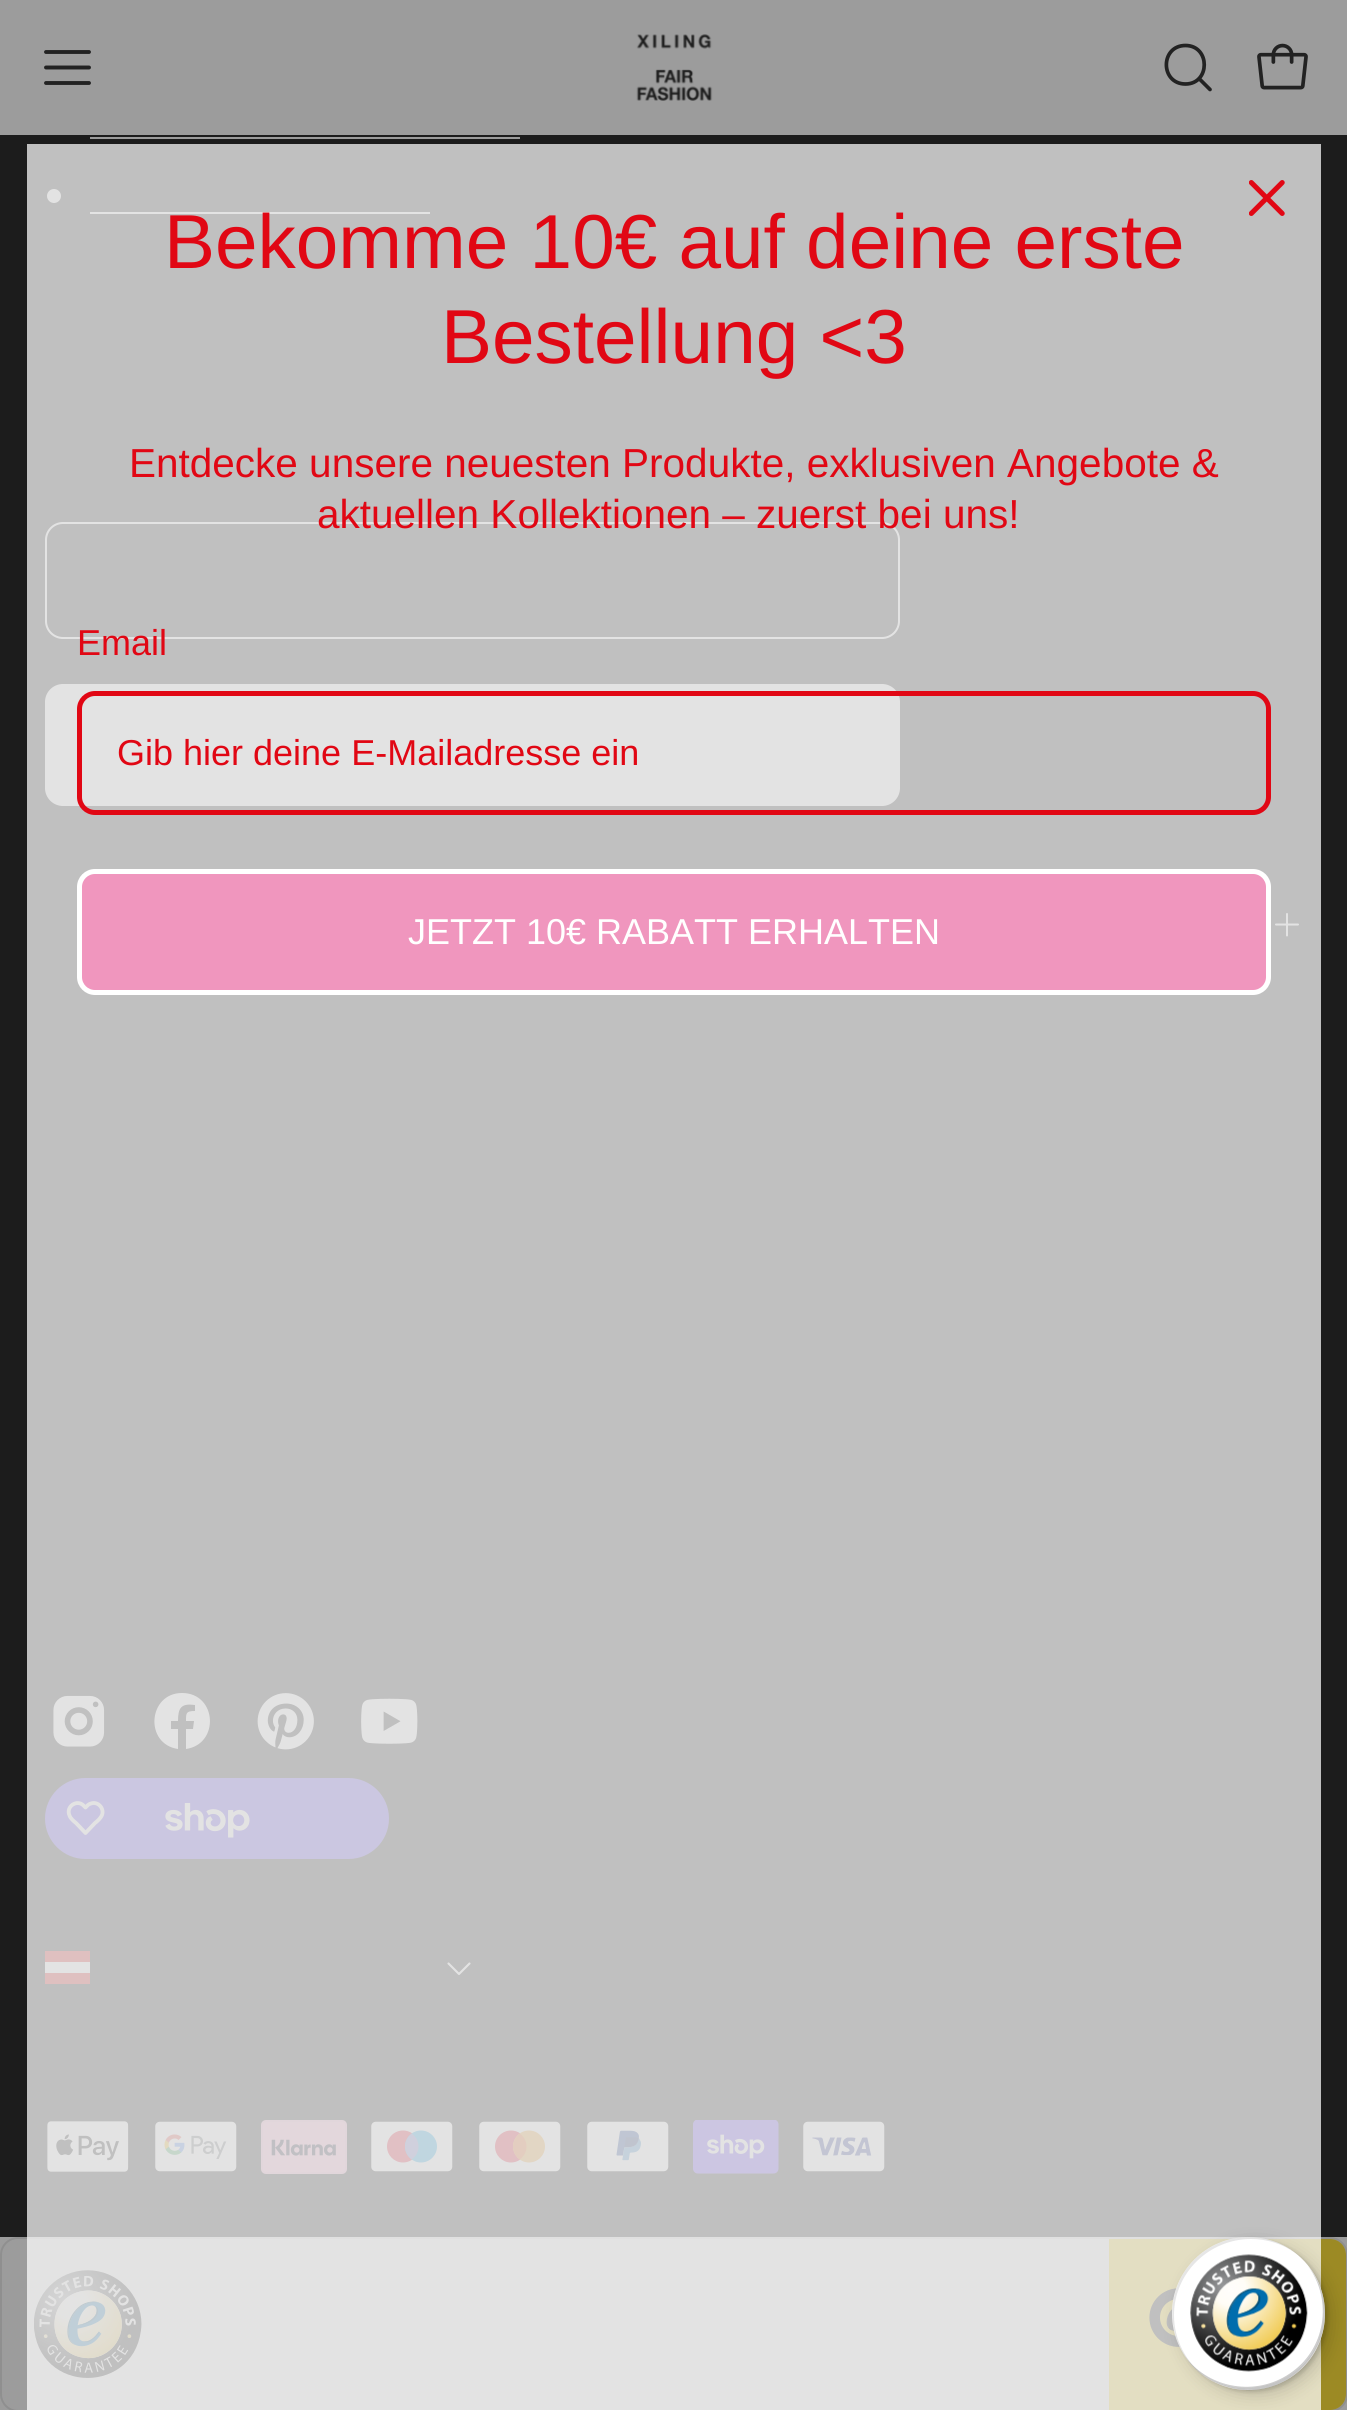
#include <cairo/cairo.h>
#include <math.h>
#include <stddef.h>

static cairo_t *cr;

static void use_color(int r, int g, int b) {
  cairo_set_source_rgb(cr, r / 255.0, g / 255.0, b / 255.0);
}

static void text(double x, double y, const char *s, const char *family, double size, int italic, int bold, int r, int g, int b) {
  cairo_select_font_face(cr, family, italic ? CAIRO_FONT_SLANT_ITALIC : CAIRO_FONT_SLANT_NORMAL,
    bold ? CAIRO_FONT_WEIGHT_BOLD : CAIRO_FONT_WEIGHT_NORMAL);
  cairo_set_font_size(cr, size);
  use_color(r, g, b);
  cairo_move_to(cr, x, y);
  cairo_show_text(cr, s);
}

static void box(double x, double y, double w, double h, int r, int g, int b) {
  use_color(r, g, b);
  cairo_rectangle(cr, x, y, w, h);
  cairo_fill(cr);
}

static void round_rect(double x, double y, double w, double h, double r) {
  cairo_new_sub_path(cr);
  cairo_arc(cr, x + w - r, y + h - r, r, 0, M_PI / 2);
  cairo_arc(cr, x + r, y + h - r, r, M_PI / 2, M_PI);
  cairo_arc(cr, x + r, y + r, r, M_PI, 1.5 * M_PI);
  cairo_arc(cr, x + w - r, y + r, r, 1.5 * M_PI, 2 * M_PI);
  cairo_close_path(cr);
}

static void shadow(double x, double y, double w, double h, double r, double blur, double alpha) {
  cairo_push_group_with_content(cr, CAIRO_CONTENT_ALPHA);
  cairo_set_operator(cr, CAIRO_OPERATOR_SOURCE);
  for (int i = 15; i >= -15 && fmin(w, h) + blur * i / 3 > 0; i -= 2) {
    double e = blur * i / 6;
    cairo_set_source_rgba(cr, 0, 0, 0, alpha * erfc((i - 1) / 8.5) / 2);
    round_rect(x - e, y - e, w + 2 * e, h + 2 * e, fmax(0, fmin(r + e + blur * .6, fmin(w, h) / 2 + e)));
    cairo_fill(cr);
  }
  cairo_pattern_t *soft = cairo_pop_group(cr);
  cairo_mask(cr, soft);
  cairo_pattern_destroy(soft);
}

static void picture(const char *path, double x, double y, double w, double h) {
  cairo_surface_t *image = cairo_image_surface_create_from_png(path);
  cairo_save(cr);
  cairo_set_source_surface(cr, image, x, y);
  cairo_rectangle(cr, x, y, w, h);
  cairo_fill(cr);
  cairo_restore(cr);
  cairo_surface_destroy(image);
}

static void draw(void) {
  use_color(156, 156, 156);
  cairo_paint(cr);
  cairo_new_path(cr);
  cairo_move_to(cr, 46, 67.5);
  cairo_line_to(cr, 89, 67.5);
  cairo_move_to(cr, 46, 52);
  cairo_line_to(cr, 89, 52);
  cairo_move_to(cr, 46, 83);
  cairo_line_to(cr, 89, 83);
  use_color(34, 34, 34);
  cairo_set_line_width(cr, 3.9);
  cairo_set_line_cap(cr, CAIRO_LINE_CAP_ROUND);
  cairo_set_line_join(cr, CAIRO_LINE_JOIN_ROUND);
  cairo_stroke(cr);
  picture("img_01.png", 636, 34, 77, 67);
  cairo_new_path(cr);
  cairo_move_to(cr, 1185.5, 84);
  cairo_curve_to(cr, 1210.5, 84, 1210.5, 45.5, 1185.5, 45.5);
  cairo_curve_to(cr, 1160, 45.5, 1160, 84, 1185.5, 84);
  cairo_close_path(cr);
  cairo_move_to(cr, 1199, 78.5);
  cairo_line_to(cr, 1210, 89.5);
  cairo_set_line_width(cr, 3.7);
  cairo_stroke(cr);
  picture("img_02.png", 1257, 43, 51, 47);
  box(0, 135, 1347, 2102, 28, 28, 28);
  box(90, 137, 430, 2, 156, 156, 156);
  cairo_arc(cr, 54, 196, 7, 0, 2 * M_PI);
  cairo_fill(cr);
  box(90, 212, 340, 2, 156, 156, 156);
  round_rect(46, 523, 853, 115, 17);
  cairo_set_line_width(cr, 2);
  cairo_set_line_cap(cr, CAIRO_LINE_CAP_BUTT);
  cairo_set_line_join(cr, CAIRO_LINE_JOIN_MITER);
  cairo_stroke(cr);
  round_rect(45, 684, 855, 122, 18);
  cairo_fill(cr);
  cairo_new_path(cr);
  cairo_move_to(cr, 1276, 924.5);
  cairo_line_to(cr, 1298, 924.5);
  cairo_move_to(cr, 1287, 914);
  cairo_line_to(cr, 1287, 935.5);
  cairo_set_line_cap(cr, CAIRO_LINE_CAP_ROUND);
  cairo_set_line_join(cr, CAIRO_LINE_JOIN_ROUND);
  cairo_stroke(cr);
  picture("img_03.png", 53, 1695, 52, 52);
  cairo_new_path(cr);
  cairo_move_to(cr, 182, 1693);
  cairo_curve_to(cr, 148, 1693, 144, 1744, 178, 1749);
  cairo_line_to(cr, 178, 1729);
  cairo_line_to(cr, 171, 1729);
  cairo_line_to(cr, 171, 1721);
  cairo_line_to(cr, 178, 1721);
  cairo_curve_to(cr, 178, 1708, 181, 1703, 195, 1705);
  cairo_line_to(cr, 195, 1711);
  cairo_curve_to(cr, 186, 1711, 186, 1713, 186, 1721);
  cairo_line_to(cr, 194, 1721);
  cairo_line_to(cr, 193, 1729);
  cairo_line_to(cr, 186, 1729);
  cairo_line_to(cr, 186, 1749);
  cairo_curve_to(cr, 220, 1744, 217, 1693, 182, 1693);
  cairo_close_path(cr);
  cairo_fill(cr);
  picture("img_04.png", 257, 1693, 57, 57);
  picture("img_05.png", 361, 1698, 57, 46);
  use_color(70, 54, 146);
  round_rect(45, 1778, 344, 81, 40.5);
  cairo_fill(cr);
  cairo_new_path(cr);
  cairo_move_to(cr, 83.5, 1805.5);
  cairo_line_to(cr, 85.5, 1807.5);
  cairo_curve_to(cr, 87, 1806, 88.5, 1804, 91, 1803.5);
  cairo_curve_to(cr, 98, 1801, 104.5, 1808.5, 102, 1815);
  cairo_curve_to(cr, 100.5, 1818.5, 97.5, 1821, 95, 1823);
  cairo_line_to(cr, 85.5, 1833);
  cairo_line_to(cr, 76, 1823);
  cairo_curve_to(cr, 73.5, 1821, 70.5, 1818.5, 69.5, 1815.5);
  cairo_curve_to(cr, 65.5, 1806.5, 77, 1799, 83.5, 1805.5);
  cairo_close_path(cr);
  use_color(156, 156, 156);
  cairo_set_line_width(cr, 3.8);
  cairo_set_line_cap(cr, CAIRO_LINE_CAP_BUTT);
  cairo_stroke(cr);
  picture("img_06.png", 165, 1803, 85, 35);
  box(45, 1962, 45, 11, 156, 156, 156);
  use_color(140, 28, 28);
  cairo_set_fill_rule(cr, CAIRO_FILL_RULE_EVEN_ODD);
  cairo_new_path(cr);
  cairo_move_to(cr, 90, 1984);
  cairo_line_to(cr, 45, 1984);
  cairo_line_to(cr, 45, 1973);
  cairo_line_to(cr, 90, 1973);
  cairo_close_path(cr);
  cairo_move_to(cr, 90, 1962);
  cairo_line_to(cr, 45, 1962);
  cairo_line_to(cr, 45, 1951);
  cairo_line_to(cr, 90, 1951);
  cairo_close_path(cr);
  cairo_fill(cr);
  cairo_new_path(cr);
  cairo_move_to(cr, 469.5, 1963.5);
  cairo_line_to(cr, 459, 1974);
  cairo_line_to(cr, 448.5, 1963.5);
  use_color(156, 156, 156);
  cairo_set_line_width(cr, 2.1);
  cairo_set_line_cap(cr, CAIRO_LINE_CAP_ROUND);
  cairo_stroke(cr);
  picture("img_07.png", 47, 2121, 82, 51);
  picture("img_08.png", 155, 2121, 82, 51);
  picture("img_09.png", 261, 2120, 86, 54);
  picture("img_10.png", 371, 2121, 82, 51);
  picture("img_11.png", 479, 2121, 82, 51);
  picture("img_12.png", 587, 2121, 82, 51);
  picture("img_13.png", 693, 2120, 86, 54);
  picture("img_14.png", 803, 2121, 82, 51);
  round_rect(1, 2238, 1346, 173, 17);
  use_color(143, 143, 143);
  cairo_set_line_width(cr, 2);
  cairo_set_line_cap(cr, CAIRO_LINE_CAP_BUTT);
  cairo_set_line_join(cr, CAIRO_LINE_JOIN_MITER);
  cairo_stroke(cr);
  picture("img_17.png", 34, 2270, 108, 108);
  use_color(156, 138, 36);
  cairo_new_path(cr);
  cairo_move_to(cr, 1109, 2239);
  cairo_line_to(cr, 1330, 2239);
  cairo_curve_to(cr, 1339, 2239, 1346, 2246, 1346, 2255);
  cairo_line_to(cr, 1346, 2394);
  cairo_curve_to(cr, 1346, 2403, 1339, 2410, 1330, 2410);
  cairo_line_to(cr, 1109, 2410);
  cairo_close_path(cr);
  cairo_fill(cr);
  picture("img_18.png", 1149, 2288, 31, 59);
  cairo_set_source_rgba(cr, 1, 1, 1, 0.72);
  cairo_rectangle(cr, 27, 144, 1294, 2266);
  cairo_fill(cr);
  picture("img_15.png", 1249, 180, 36, 36);
  round_rect(79.5, 693.5, 1189, 119, 15.5);
  use_color(225, 7, 20);
  cairo_set_line_width(cr, 5);
  cairo_stroke(cr);
  use_color(240, 150, 190);
  round_rect(79.5, 871.5, 1189, 121, 15.5);
  cairo_fill_preserve(cr);
  use_color(255, 255, 255);
  cairo_stroke(cr);
  use_color(0, 0, 0);
  shadow(1179, 2243, 153, 153, 76.5, 9, 0.15);
  shadow(1175, 2239, 153, 153, 76.5, 2, 0.15);
  use_color(255, 255, 255);
  cairo_arc(cr, 1248.5, 2313.5, 76.5, 0, 2 * M_PI);
  cairo_fill(cr);
  cairo_set_source_rgba(cr, 0, 0, 0, 0.1);
  cairo_set_fill_rule(cr, CAIRO_FILL_RULE_WINDING);
  cairo_new_path(cr);
  cairo_move_to(cr, 1251, 2239);
  cairo_curve_to(cr, 1267, 2239, 1283, 2244, 1295, 2253);
  cairo_curve_to(cr, 1261, 2226, 1210, 2234, 1185, 2271);
  cairo_curve_to(cr, 1162, 2306, 1171, 2353, 1205, 2377);
  cairo_curve_to(cr, 1186, 2362, 1174, 2340, 1174, 2315);
  cairo_curve_to(cr, 1174, 2273, 1209, 2239, 1251, 2239);
  cairo_close_path(cr);
  cairo_fill(cr);
  cairo_set_source_rgba(cr, 0, 0, 0, 0.2);
  cairo_new_path(cr);
  cairo_move_to(cr, 1186, 2358);
  cairo_curve_to(cr, 1210, 2391, 1257, 2400, 1291, 2377);
  cairo_curve_to(cr, 1328, 2352, 1336, 2300, 1308, 2266);
  cairo_curve_to(cr, 1333, 2300, 1326, 2350, 1289, 2374);
  cairo_curve_to(cr, 1256, 2396, 1211, 2389, 1186, 2358);
  cairo_close_path(cr);
  cairo_fill(cr);
  cairo_set_source_rgba(cr, 0.196, 0.196, 0.196, 0.2);
  cairo_new_path(cr);
  cairo_move_to(cr, 1183, 2353);
  cairo_curve_to(cr, 1191, 2367, 1204, 2378, 1219, 2384);
  cairo_curve_to(cr, 1286, 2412, 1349, 2340, 1316, 2278);
  cairo_curve_to(cr, 1333, 2312, 1322, 2354, 1290, 2375);
  cairo_curve_to(cr, 1254, 2399, 1206, 2389, 1183, 2353);
  cairo_close_path(cr);
  cairo_fill(cr);
  cairo_set_source_rgba(cr, 1, 1, 1, 0.3);
  cairo_new_path(cr);
  cairo_move_to(cr, 1182, 2352);
  cairo_curve_to(cr, 1195, 2375, 1220, 2390, 1248, 2390);
  cairo_curve_to(cr, 1291, 2390, 1325, 2356, 1325, 2314);
  cairo_curve_to(cr, 1325, 2299, 1321, 2285, 1313, 2273);
  cairo_curve_to(cr, 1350, 2335, 1287, 2410, 1218, 2382);
  cairo_curve_to(cr, 1203, 2376, 1191, 2365, 1182, 2352);
  cairo_close_path(cr);
  cairo_fill(cr);
  picture("img_16.png", 1190, 2254, 118, 118);
  text(164, 268, "Bekomme 10€ auf deine erste", "Liberation Sans", 76.5, 0, 0, 225, 7, 20);
  text(441, 363, "Bestellung <3", "Liberation Sans", 76.5, 0, 0, 225, 7, 20);
  text(129, 477, "Entdecke unsere neuesten Produkte, exklusiven Angebote &", "Liberation Sans", 40.5, 0, 0, 225, 7, 20);
  text(317, 528, "aktuellen Kollektionen – zuerst bei uns!", "Liberation Sans", 40.5, 0, 0, 225, 7, 20);
  text(77, 655, "Email", "Liberation Sans", 36, 0, 0, 225, 7, 20);
  text(117, 765, "Gib hier deine E-Mailadresse ein", "Liberation Sans", 36, 0, 0, 225, 7, 20);
  text(408, 944, "JETZT 10€ RABATT ERHALTEN", "Liberation Sans", 36, 0, 0, 255, 255, 255);
}

int main(void) {
  cairo_surface_t *surface = cairo_image_surface_create(CAIRO_FORMAT_RGB24, 1347, 2410);
  cr = cairo_create(surface);
  cairo_font_options_t *options = cairo_font_options_create();
  cairo_font_options_set_hint_metrics(options, CAIRO_HINT_METRICS_OFF);
  cairo_font_options_set_hint_style(options, CAIRO_HINT_STYLE_NONE);
  cairo_set_font_options(cr, options);
  cairo_set_miter_limit(cr, 4);
  draw();
  cairo_surface_write_to_png(surface, "out.png");
  cairo_font_options_destroy(options);
  cairo_destroy(cr);
  cairo_surface_destroy(surface);
  return 0;
}
